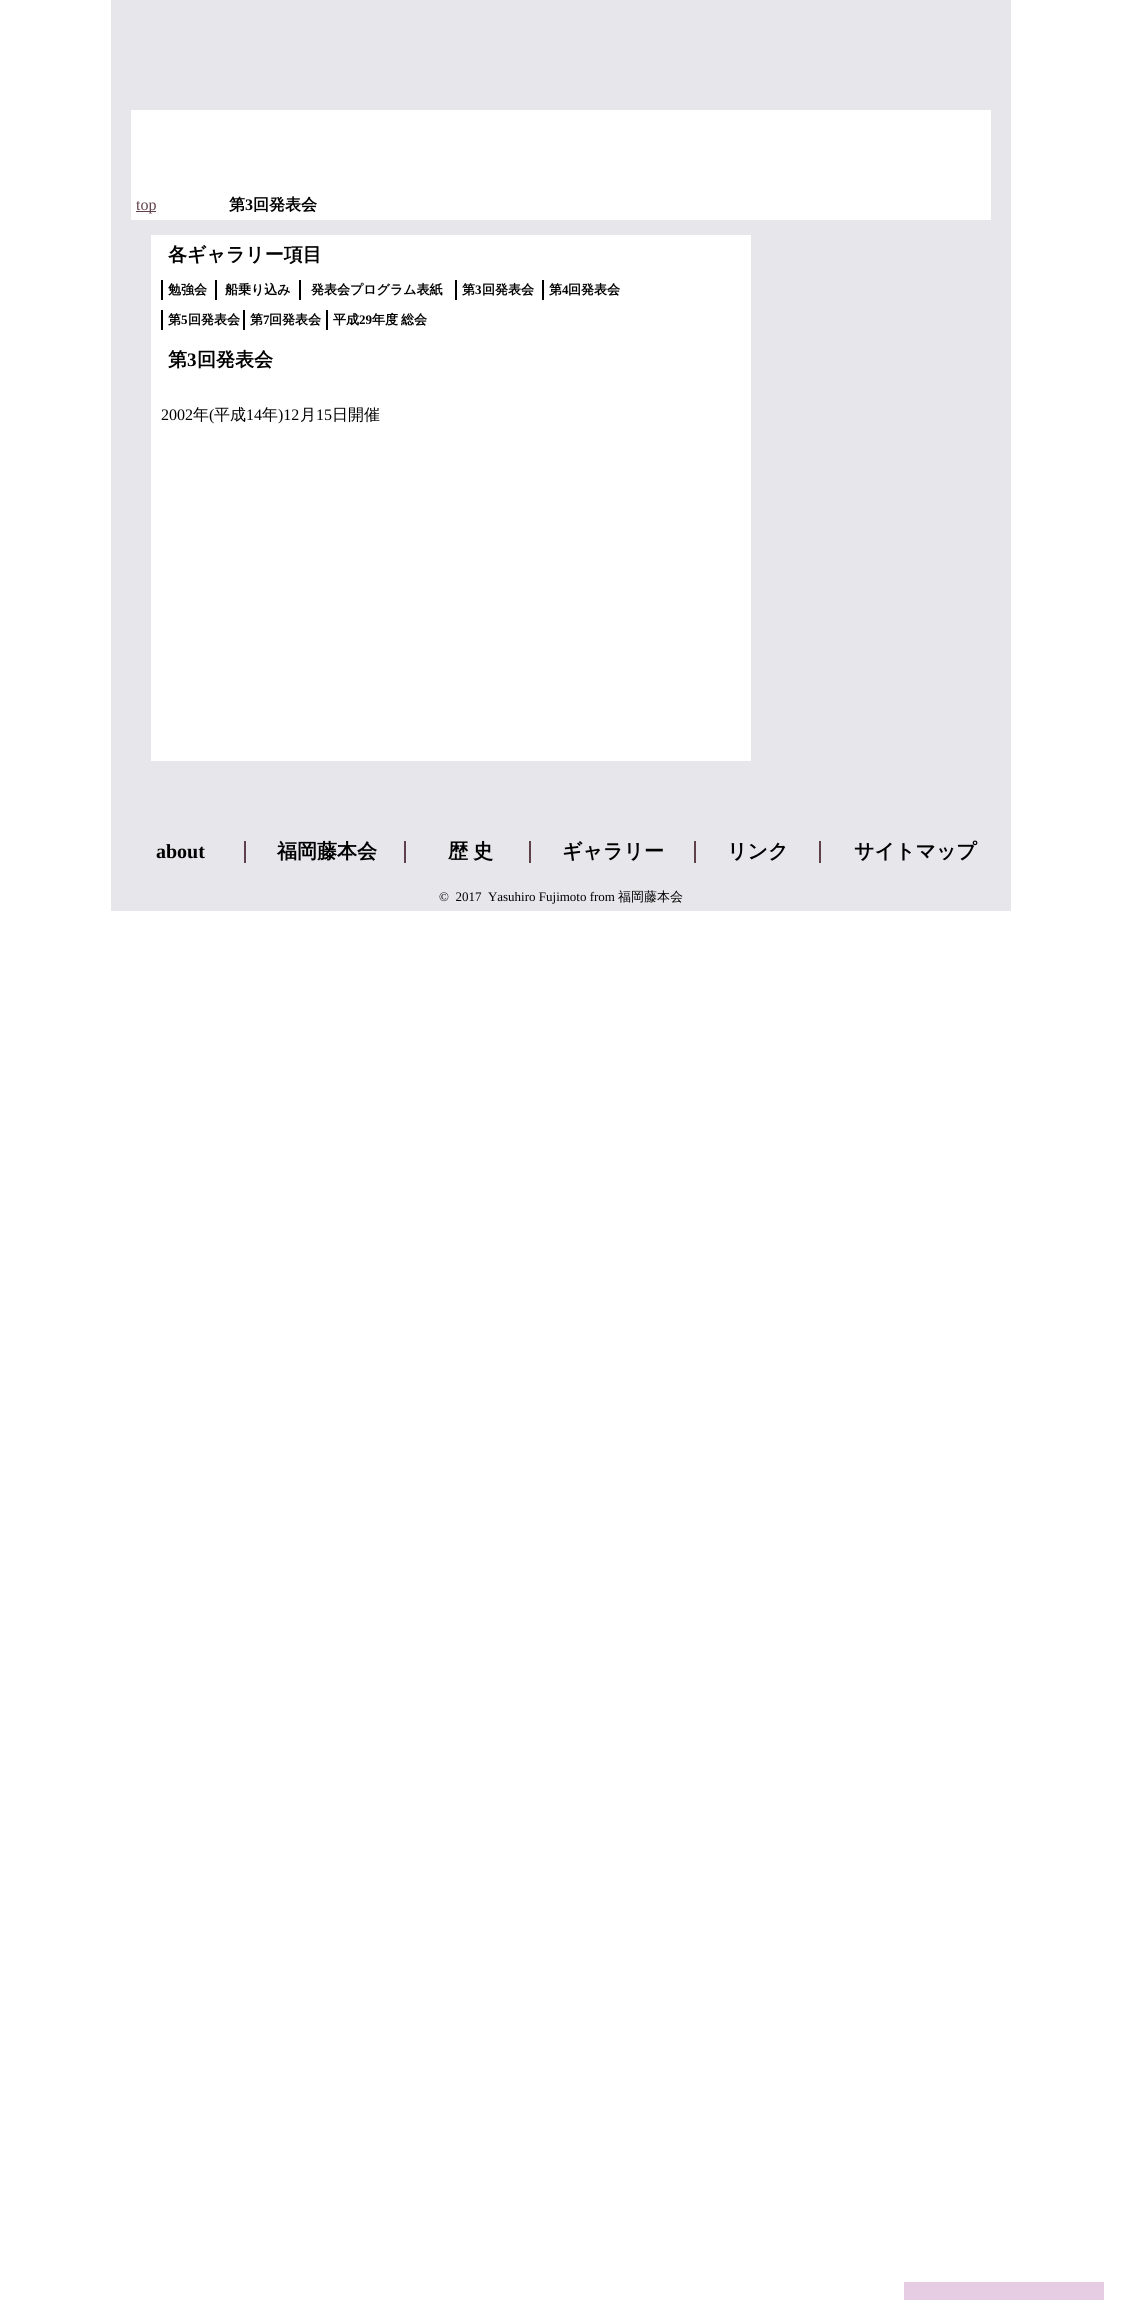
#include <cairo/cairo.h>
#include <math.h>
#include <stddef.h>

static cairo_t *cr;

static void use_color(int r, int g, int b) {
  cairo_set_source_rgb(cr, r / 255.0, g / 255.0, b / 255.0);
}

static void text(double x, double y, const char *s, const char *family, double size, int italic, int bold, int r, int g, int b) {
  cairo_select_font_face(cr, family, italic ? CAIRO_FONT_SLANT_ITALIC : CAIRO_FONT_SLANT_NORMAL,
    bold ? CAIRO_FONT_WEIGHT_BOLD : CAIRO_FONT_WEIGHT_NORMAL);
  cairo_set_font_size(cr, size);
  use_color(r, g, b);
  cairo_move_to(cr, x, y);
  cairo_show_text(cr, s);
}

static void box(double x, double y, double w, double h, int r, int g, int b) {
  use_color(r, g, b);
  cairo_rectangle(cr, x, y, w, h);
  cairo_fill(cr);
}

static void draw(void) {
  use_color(255, 255, 255);
  cairo_paint(cr);
  box(111, 0, 900, 911, 231, 231, 235);
  box(131, 110, 860, 110, 255, 255, 255);
  box(136, 211, 20, 1, 95, 65, 75);
  box(151, 235, 600, 526, 255, 255, 255);
  box(161, 280, 2, 20, 0, 0, 0);
  box(299, 280, 2, 20, 0, 0, 0);
  box(215, 280, 2, 20, 0, 0, 0);
  box(455, 280, 2, 20, 0, 0, 0);
  box(542, 280, 2, 20, 0, 0, 0);
  box(243, 310, 2, 20, 0, 0, 0);
  box(161, 310, 2, 20, 0, 0, 0);
  box(326, 310, 2, 20, 0, 0, 0);
  box(244, 841, 2, 22, 95, 65, 75);
  box(404, 841, 2, 22, 95, 65, 75);
  box(529, 841, 2, 22, 95, 65, 75);
  box(694, 841, 2, 22, 95, 65, 75);
  box(819, 841, 2, 22, 95, 65, 75);
  box(904, 2282, 200, 18, 230, 205, 227);
  text(136, 210, "top", "Liberation Serif", 16, 0, 0, 95, 65, 75);
  text(229, 210, "第", "WenQuanYi Zen Hei", 16, 0, 1, 0, 0, 0);
  text(245, 210, "3", "Liberation Serif", 16, 0, 1, 0, 0, 0);
  text(253, 210, "回発表会", "WenQuanYi Zen Hei", 16, 0, 1, 0, 0, 0);
  text(168, 261, "各ギャラリー項目", "WenQuanYi Zen Hei", 19, 0, 1, 0, 0, 0);
  text(168, 294, "勉強会", "WenQuanYi Zen Hei", 13, 0, 1, 0, 0, 0);
  text(225, 294, "船乗り込み", "WenQuanYi Zen Hei", 13, 0, 1, 0, 0, 0);
  text(311, 294, "発表会プログラム表紙", "WenQuanYi Zen Hei", 13, 0, 1, 0, 0, 0);
  text(462, 294, "第", "WenQuanYi Zen Hei", 13, 0, 1, 0, 0, 0);
  text(475, 294, "3", "Liberation Serif", 13, 0, 1, 0, 0, 0);
  text(482, 294, "回発表会", "WenQuanYi Zen Hei", 13, 0, 1, 0, 0, 0);
  text(549, 294, "第", "WenQuanYi Zen Hei", 13, 0, 1, 0, 0, 0);
  text(562, 294, "4", "Liberation Serif", 13, 0, 1, 0, 0, 0);
  text(568, 294, "回発表会", "WenQuanYi Zen Hei", 13, 0, 1, 0, 0, 0);
  text(168, 324, "第", "WenQuanYi Zen Hei", 13, 0, 1, 0, 0, 0);
  text(181, 324, "5", "Liberation Serif", 13, 0, 1, 0, 0, 0);
  text(188, 324, "回発表会", "WenQuanYi Zen Hei", 13, 0, 1, 0, 0, 0);
  text(250, 324, "第", "WenQuanYi Zen Hei", 13, 0, 1, 0, 0, 0);
  text(263, 324, "7", "Liberation Serif", 13, 0, 1, 0, 0, 0);
  text(269, 324, "回発表会", "WenQuanYi Zen Hei", 13, 0, 1, 0, 0, 0);
  text(333, 324, "平成", "WenQuanYi Zen Hei", 13, 0, 1, 0, 0, 0);
  text(359, 324, "29", "Liberation Serif", 13, 0, 1, 0, 0, 0);
  text(372, 324, "年度", "WenQuanYi Zen Hei", 13, 0, 1, 0, 0, 0);
  text(401, 324, "総会", "WenQuanYi Zen Hei", 13, 0, 1, 0, 0, 0);
  text(168, 366, "第", "WenQuanYi Zen Hei", 19, 0, 1, 0, 0, 0);
  text(187, 366, "3", "Liberation Serif", 19, 0, 1, 0, 0, 0);
  text(197, 366, "回発表会", "WenQuanYi Zen Hei", 19, 0, 1, 0, 0, 0);
  text(161, 420, "2002", "Liberation Serif", 16, 0, 0, 0, 0, 0);
  text(193, 420, "年", "WenQuanYi Zen Hei Medium", 16, 0, 0, 0, 0, 0);
  text(209, 420, "(", "Liberation Serif", 16, 0, 0, 0, 0, 0);
  text(214, 420, "平成", "WenQuanYi Zen Hei Medium", 16, 0, 0, 0, 0, 0);
  text(246, 420, "14", "Liberation Serif", 16, 0, 0, 0, 0, 0);
  text(262, 420, "年", "WenQuanYi Zen Hei Medium", 16, 0, 0, 0, 0, 0);
  text(278, 420, ")12", "Liberation Serif", 16, 0, 0, 0, 0, 0);
  text(300, 420, "月", "WenQuanYi Zen Hei Medium", 16, 0, 0, 0, 0, 0);
  text(316, 420, "15", "Liberation Serif", 16, 0, 0, 0, 0, 0);
  text(332, 420, "日開催", "WenQuanYi Zen Hei Medium", 16, 0, 0, 0, 0, 0);
  text(156, 858, "about", "Liberation Serif", 20, 0, 1, 0, 0, 0);
  text(277, 858, "福岡藤本会", "WenQuanYi Zen Hei", 20, 0, 1, 0, 0, 0);
  text(448, 858, "歴", "WenQuanYi Zen Hei", 20, 0, 1, 0, 0, 0);
  text(473, 858, "史", "WenQuanYi Zen Hei", 20, 0, 1, 0, 0, 0);
  text(562, 858, "ギャラリー", "WenQuanYi Zen Hei", 20, 0, 1, 0, 0, 0);
  text(727, 858, "リンク", "WenQuanYi Zen Hei", 20, 0, 1, 0, 0, 0);
  text(854, 858, "サイトマップ", "WenQuanYi Zen Hei", 20, 0, 1, 0, 0, 0);
  text(439, 901, "©  2017  Yasuhiro Fujimoto from", "Liberation Serif", 13, 0, 0, 0, 0, 0);
  text(618, 901, "福岡藤本会", "WenQuanYi Zen Hei Medium", 13, 0, 0, 0, 0, 0);
}

int main(void) {
  cairo_surface_t *surface = cairo_image_surface_create(CAIRO_FORMAT_RGB24, 1122, 2300);
  cr = cairo_create(surface);
  cairo_font_options_t *options = cairo_font_options_create();
  cairo_font_options_set_hint_metrics(options, CAIRO_HINT_METRICS_OFF);
  cairo_font_options_set_hint_style(options, CAIRO_HINT_STYLE_NONE);
  cairo_set_font_options(cr, options);
  cairo_set_miter_limit(cr, 4);
  draw();
  cairo_surface_write_to_png(surface, "out.png");
  cairo_font_options_destroy(options);
  cairo_destroy(cr);
  cairo_surface_destroy(surface);
  return 0;
}
